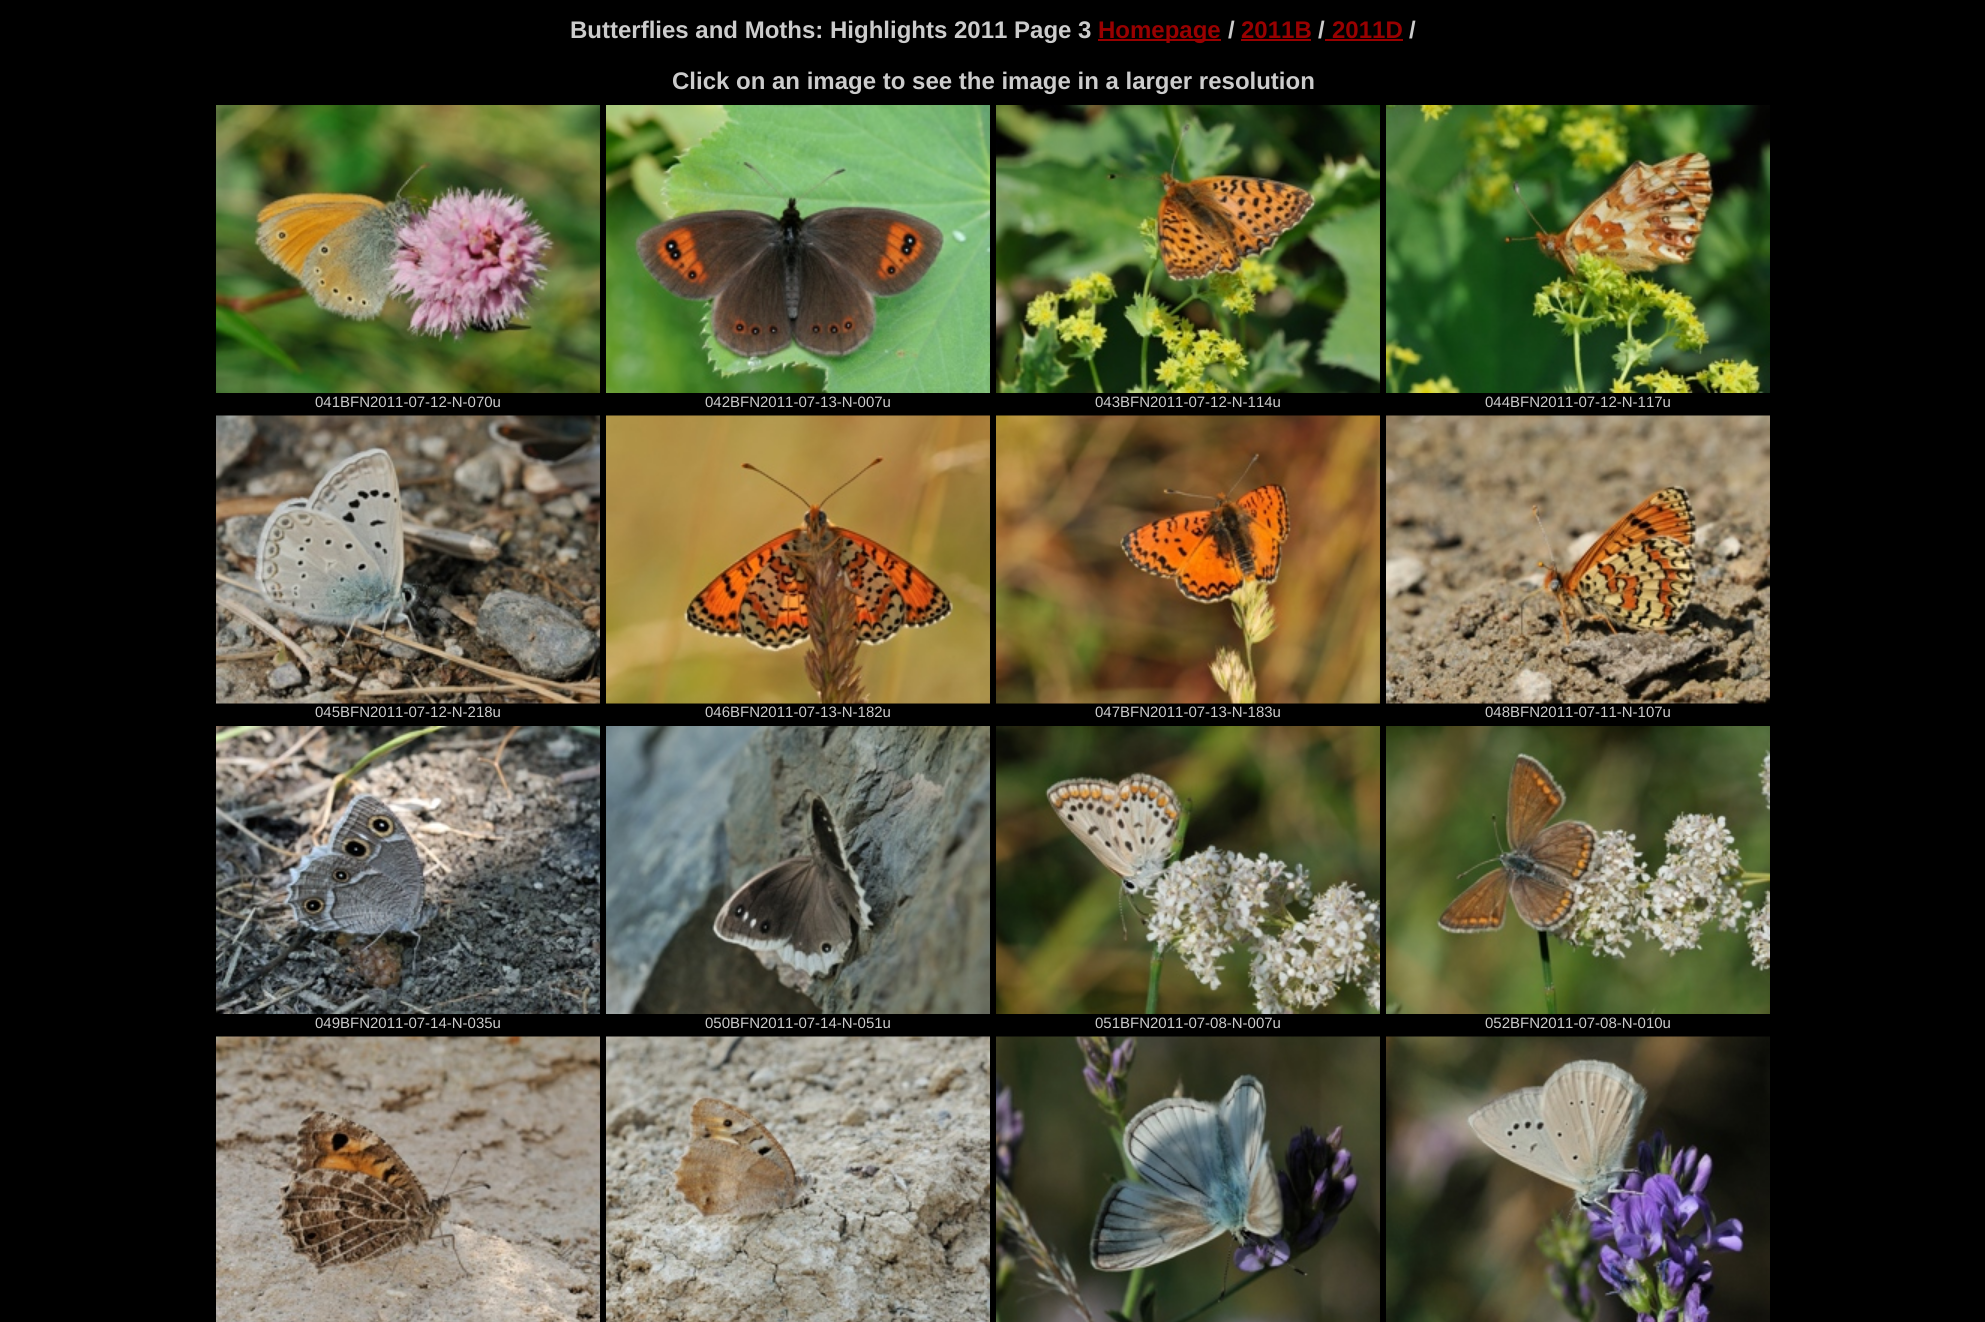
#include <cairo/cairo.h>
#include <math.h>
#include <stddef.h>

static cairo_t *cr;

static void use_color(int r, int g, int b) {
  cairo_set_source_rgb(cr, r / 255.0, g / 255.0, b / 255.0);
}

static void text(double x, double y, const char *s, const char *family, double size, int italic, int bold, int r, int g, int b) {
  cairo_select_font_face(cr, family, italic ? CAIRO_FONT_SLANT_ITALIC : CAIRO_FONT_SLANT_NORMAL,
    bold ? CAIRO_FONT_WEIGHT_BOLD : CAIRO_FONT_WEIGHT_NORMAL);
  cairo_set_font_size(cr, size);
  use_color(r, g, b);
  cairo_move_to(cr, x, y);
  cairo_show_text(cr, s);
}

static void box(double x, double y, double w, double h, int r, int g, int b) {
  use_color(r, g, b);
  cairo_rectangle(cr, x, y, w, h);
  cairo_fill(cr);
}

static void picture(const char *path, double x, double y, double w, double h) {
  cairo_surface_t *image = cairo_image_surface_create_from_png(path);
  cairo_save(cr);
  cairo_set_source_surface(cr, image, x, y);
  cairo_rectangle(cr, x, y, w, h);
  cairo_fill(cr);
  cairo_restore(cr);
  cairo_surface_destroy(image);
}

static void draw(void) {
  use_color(0, 0, 0);
  cairo_paint(cr);
  box(1098, 39, 123, 2, 153, 0, 0);
  box(1241, 39, 70, 2, 153, 0, 0);
  box(1325, 39, 78, 2, 153, 0, 0);
  picture("img_01.png", 216, 105, 384, 288);
  picture("img_02.png", 606, 105, 384, 288);
  picture("img_03.png", 996, 105, 384, 288);
  picture("img_04.png", 1386, 105, 384, 288);
  picture("img_05.png", 216, 415, 384, 289);
  picture("img_06.png", 606, 415, 384, 289);
  picture("img_07.png", 996, 415, 384, 289);
  picture("img_08.png", 1386, 415, 384, 289);
  picture("img_09.png", 216, 726, 384, 288);
  picture("img_10.png", 606, 726, 384, 288);
  picture("img_11.png", 996, 726, 384, 288);
  picture("img_12.png", 1386, 726, 384, 288);
  picture("img_13.png", 216, 1036, 384, 286);
  picture("img_14.png", 606, 1036, 384, 286);
  picture("img_15.png", 996, 1036, 384, 286);
  picture("img_16.png", 1386, 1036, 384, 286);
  text(570, 38, "Butterflies and Moths: Highlights 2011 Page 3", "Liberation Sans", 24, 0, 1, 204, 204, 204);
  text(1098, 38, "Homepage", "Liberation Sans", 24, 0, 1, 153, 0, 0);
  text(1228, 38, "/", "Liberation Sans", 24, 0, 1, 204, 204, 204);
  text(1241, 38, "2011B", "Liberation Sans", 24, 0, 1, 153, 0, 0);
  text(1318, 38, "/", "Liberation Sans", 24, 0, 1, 204, 204, 204);
  text(1332, 38, "2011D", "Liberation Sans", 24, 0, 1, 153, 0, 0);
  text(1409, 38, "/", "Liberation Sans", 24, 0, 1, 204, 204, 204);
  text(672, 89, "Click on an image to see the image in a larger resolution", "Liberation Sans", 24, 0, 1, 204, 204, 204);
  text(315, 407, "041BFN2011-07-12-N-070u", "Liberation Sans", 15, 0, 0, 204, 204, 204);
  text(705, 407, "042BFN2011-07-13-N-007u", "Liberation Sans", 15, 0, 0, 204, 204, 204);
  text(1095, 407, "043BFN2011-07-12-N-114u", "Liberation Sans", 15, 0, 0, 204, 204, 204);
  text(1485, 407, "044BFN2011-07-12-N-117u", "Liberation Sans", 15, 0, 0, 204, 204, 204);
  text(315, 717, "045BFN2011-07-12-N-218u", "Liberation Sans", 15, 0, 0, 204, 204, 204);
  text(705, 717, "046BFN2011-07-13-N-182u", "Liberation Sans", 15, 0, 0, 204, 204, 204);
  text(1095, 717, "047BFN2011-07-13-N-183u", "Liberation Sans", 15, 0, 0, 204, 204, 204);
  text(1485, 717, "048BFN2011-07-11-N-107u", "Liberation Sans", 15, 0, 0, 204, 204, 204);
  text(315, 1028, "049BFN2011-07-14-N-035u", "Liberation Sans", 15, 0, 0, 204, 204, 204);
  text(705, 1028, "050BFN2011-07-14-N-051u", "Liberation Sans", 15, 0, 0, 204, 204, 204);
  text(1095, 1028, "051BFN2011-07-08-N-007u", "Liberation Sans", 15, 0, 0, 204, 204, 204);
  text(1485, 1028, "052BFN2011-07-08-N-010u", "Liberation Sans", 15, 0, 0, 204, 204, 204);
}

int main(void) {
  cairo_surface_t *surface = cairo_image_surface_create(CAIRO_FORMAT_RGB24, 1985, 1322);
  cr = cairo_create(surface);
  cairo_font_options_t *options = cairo_font_options_create();
  cairo_font_options_set_hint_metrics(options, CAIRO_HINT_METRICS_OFF);
  cairo_font_options_set_hint_style(options, CAIRO_HINT_STYLE_NONE);
  cairo_set_font_options(cr, options);
  cairo_set_miter_limit(cr, 4);
  draw();
  cairo_surface_write_to_png(surface, "out.png");
  cairo_font_options_destroy(options);
  cairo_destroy(cr);
  cairo_surface_destroy(surface);
  return 0;
}
